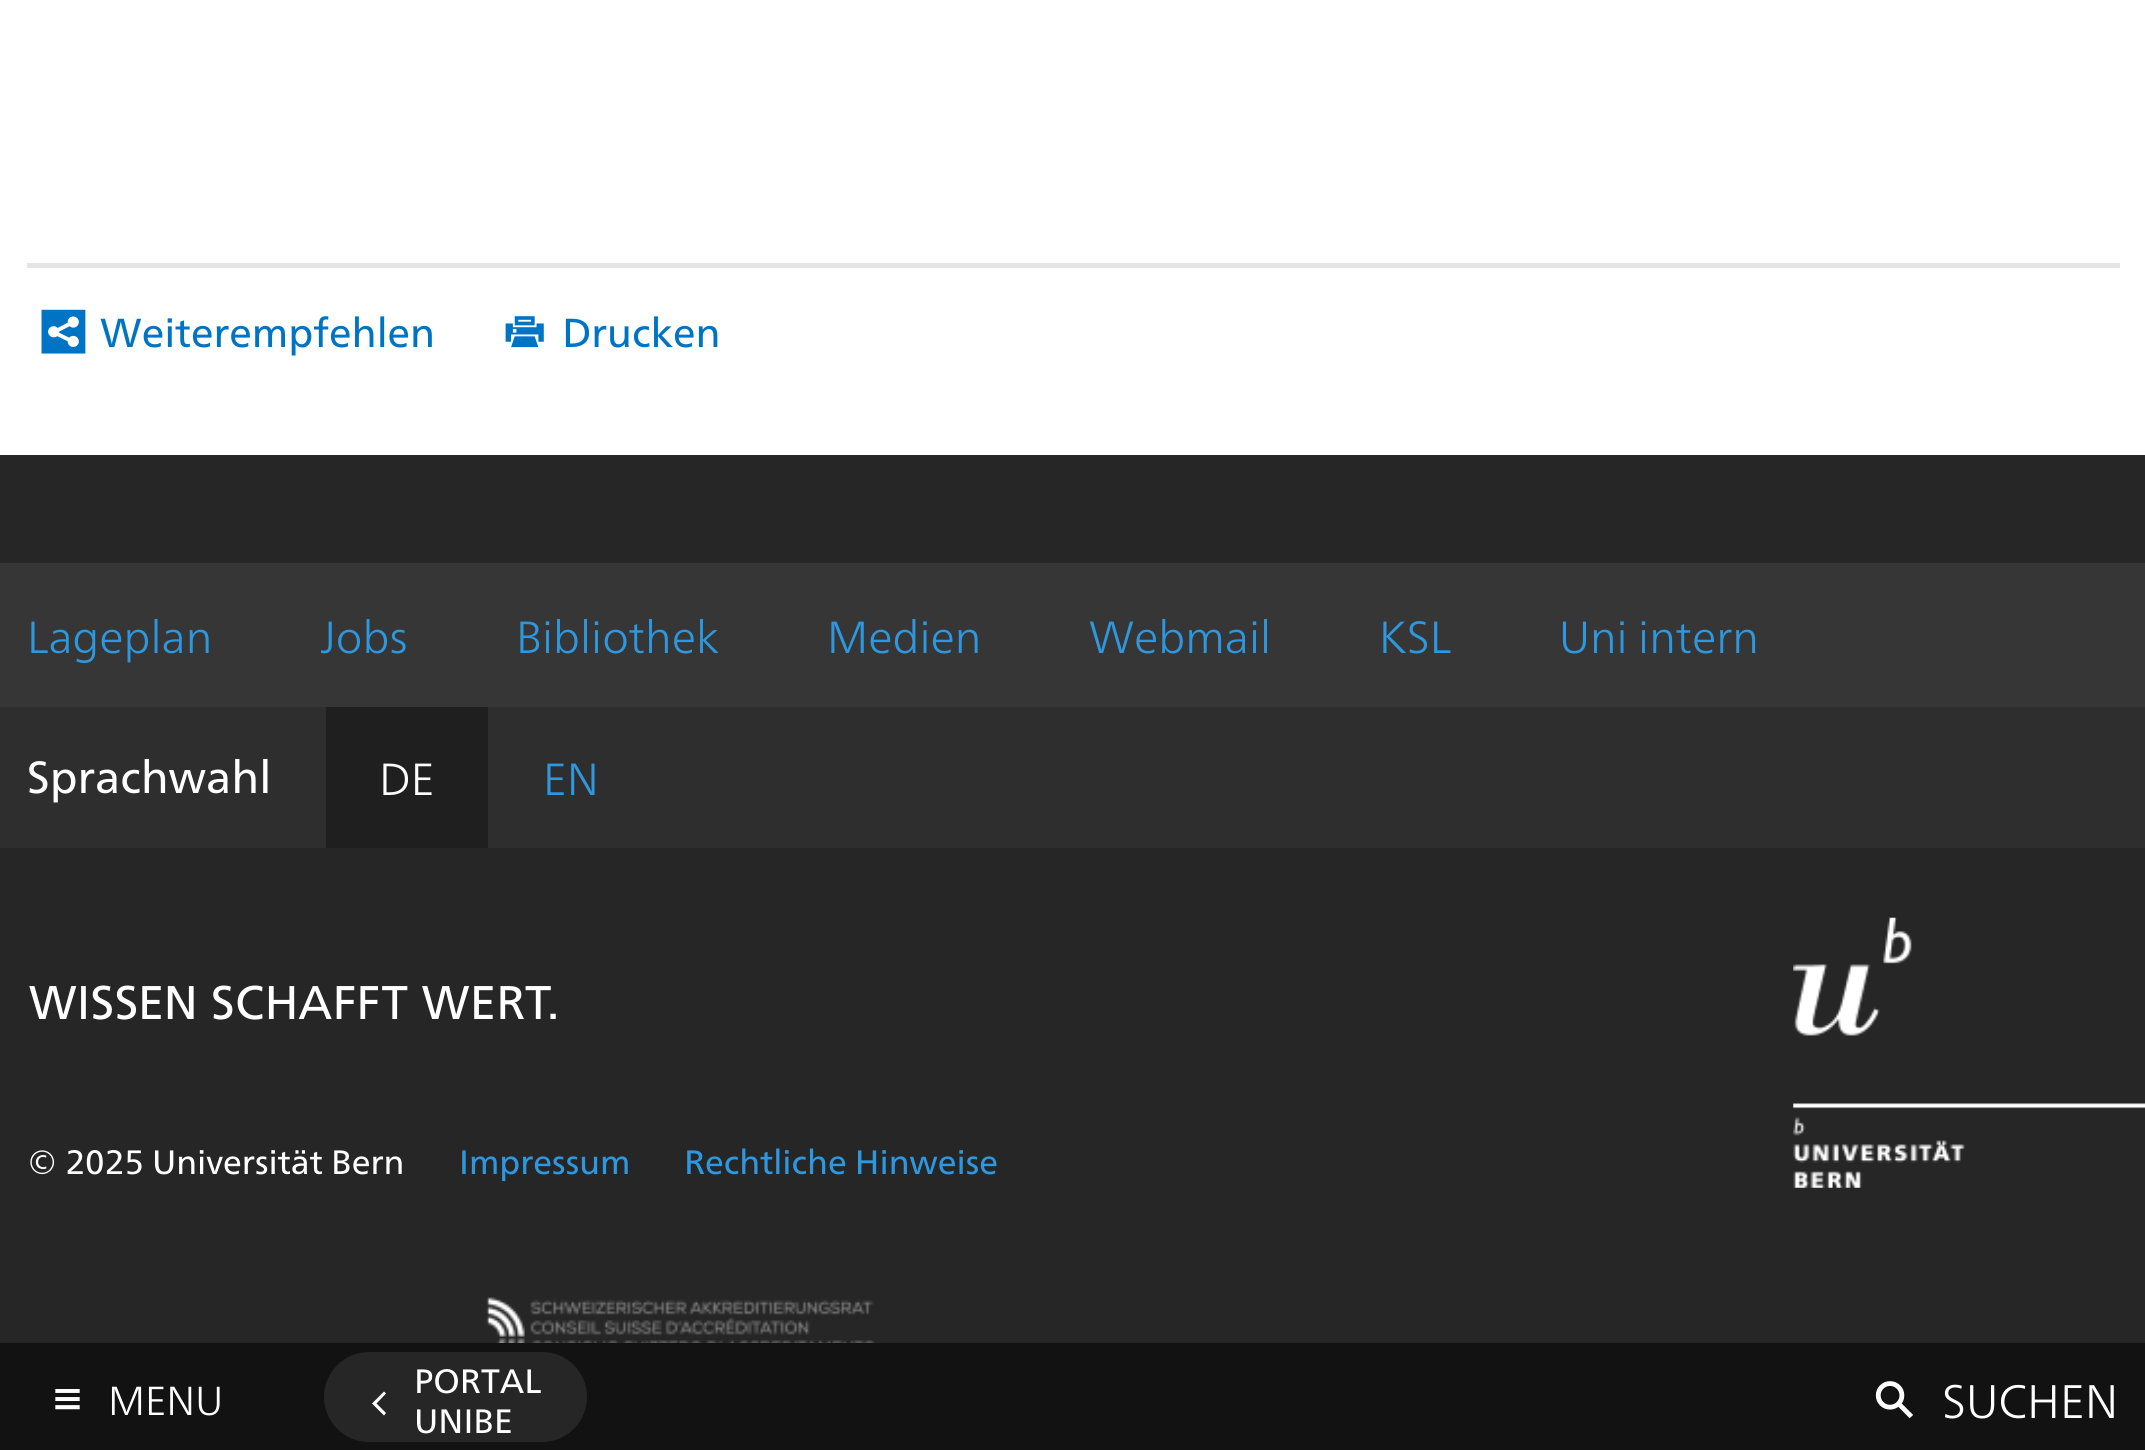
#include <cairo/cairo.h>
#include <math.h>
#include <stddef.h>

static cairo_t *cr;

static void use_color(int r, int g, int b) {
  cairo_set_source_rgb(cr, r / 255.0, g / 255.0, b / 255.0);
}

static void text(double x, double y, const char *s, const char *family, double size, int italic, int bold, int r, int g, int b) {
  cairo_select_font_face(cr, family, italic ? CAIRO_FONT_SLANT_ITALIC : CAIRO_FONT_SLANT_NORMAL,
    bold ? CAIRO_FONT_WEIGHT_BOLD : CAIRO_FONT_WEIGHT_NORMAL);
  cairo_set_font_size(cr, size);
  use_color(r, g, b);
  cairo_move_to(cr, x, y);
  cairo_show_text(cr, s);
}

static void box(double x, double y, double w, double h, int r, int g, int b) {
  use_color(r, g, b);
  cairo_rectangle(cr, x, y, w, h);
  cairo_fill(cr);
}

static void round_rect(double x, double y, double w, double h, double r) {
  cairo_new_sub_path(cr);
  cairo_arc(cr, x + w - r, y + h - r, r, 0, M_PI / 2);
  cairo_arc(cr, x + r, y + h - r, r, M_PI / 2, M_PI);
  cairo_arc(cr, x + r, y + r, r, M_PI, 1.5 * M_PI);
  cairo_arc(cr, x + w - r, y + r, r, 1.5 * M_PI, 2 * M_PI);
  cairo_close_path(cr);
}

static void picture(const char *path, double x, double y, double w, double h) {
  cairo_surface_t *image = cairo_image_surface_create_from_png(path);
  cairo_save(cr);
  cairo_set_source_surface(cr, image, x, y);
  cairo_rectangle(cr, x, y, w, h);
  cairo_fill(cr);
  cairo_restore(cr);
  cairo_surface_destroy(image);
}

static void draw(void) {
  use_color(255, 255, 255);
  cairo_paint(cr);
  box(27, 263, 2093, 5, 229, 229, 229);
  picture("img_01.png", 41, 309, 45, 45);
  picture("img_02.png", 505, 316, 39, 32);
  box(0, 455, 2145, 888, 38, 38, 38);
  box(0, 563, 2145, 144, 54, 54, 54);
  box(0, 707, 2145, 141, 46, 46, 46);
  box(326, 707, 162, 141, 31, 31, 31);
  picture("img_03.png", 29, 985, 527, 35);
  picture("img_04.png", 1793, 917, 352, 271);
  picture("img_05.png", 486, 1297, 390, 46);
  box(0, 1343, 2145, 107, 18, 18, 18);
  picture("img_06.png", 55, 1389, 25, 21);
  use_color(38, 38, 38);
  round_rect(324, 1352, 263, 90, 45);
  cairo_fill(cr);
  use_color(255, 255, 255);
  cairo_new_path(cr);
  cairo_move_to(cr, 384, 1415.5);
  cairo_line_to(cr, 372, 1403.5);
  cairo_line_to(cr, 384, 1391.5);
  cairo_line_to(cr, 386, 1393.5);
  cairo_line_to(cr, 376.5, 1403.5);
  cairo_line_to(cr, 386, 1413);
  cairo_close_path(cr);
  cairo_fill(cr);
  picture("img_07.png", 1875, 1381, 38, 38);
  text(100, 347, "Weiterempfehlen", "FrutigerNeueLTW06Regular", 40.5, 0, 0, 0, 116, 196);
  text(562, 347, "Drucken", "FrutigerNeueLTW06Regular", 40.5, 0, 0, 0, 116, 196);
  text(27, 653, "Lageplan", "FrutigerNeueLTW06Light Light", 45, 0, 0, 45, 152, 224);
  text(320, 653, "Jobs", "FrutigerNeueLTW06Light Light", 45, 0, 0, 45, 152, 224);
  text(516, 653, "Bibliothek", "FrutigerNeueLTW06Light Light", 45, 0, 0, 45, 152, 224);
  text(827, 653, "Medien", "FrutigerNeueLTW06Light Light", 45, 0, 0, 45, 152, 224);
  text(1089, 653, "Webmail", "FrutigerNeueLTW06Light Light", 45, 0, 0, 45, 152, 224);
  text(1379, 653, "KSL", "FrutigerNeueLTW06Light Light", 45, 0, 0, 45, 152, 224);
  text(1559, 653, "Uni intern", "FrutigerNeueLTW06Light Light", 45, 0, 0, 45, 152, 224);
  text(27, 793, "Sprachwahl", "FrutigerNeueLTW06Regular", 45, 0, 0, 255, 255, 255);
  text(379, 795, "DE", "FrutigerNeueLTW06Light Light", 45, 0, 0, 255, 255, 255);
  text(543, 795, "EN", "FrutigerNeueLTW06Light Light", 45, 0, 0, 45, 152, 224);
  text(27, 1174, "© 2025 Universität Bern", "FrutigerNeueLTW06Regular", 33.75, 0, 0, 255, 255, 255);
  text(459, 1174, "Impressum", "FrutigerNeueLTW06Regular", 33.75, 0, 0, 45, 152, 224);
  text(684, 1174, "Rechtliche Hinweise", "FrutigerNeueLTW06Regular", 33.75, 0, 0, 45, 152, 224);
  text(108, 1415, "MENU", "FrutigerNeueLTW06Light Light", 40.5, 0, 0, 255, 255, 255);
  text(414, 1393, "PORTAL", "FrutigerNeueLTW06Regular", 33.75, 0, 0, 255, 255, 255);
  text(414, 1433, "UNIBE", "FrutigerNeueLTW06Regular", 33.75, 0, 0, 255, 255, 255);
  text(1942, 1418, "SUCHEN", "FrutigerNeueLTW06Light Light", 47, 0, 0, 255, 255, 255);
}

int main(void) {
  cairo_surface_t *surface = cairo_image_surface_create(CAIRO_FORMAT_RGB24, 2145, 1450);
  cr = cairo_create(surface);
  cairo_font_options_t *options = cairo_font_options_create();
  cairo_font_options_set_hint_metrics(options, CAIRO_HINT_METRICS_OFF);
  cairo_font_options_set_hint_style(options, CAIRO_HINT_STYLE_NONE);
  cairo_set_font_options(cr, options);
  cairo_set_miter_limit(cr, 4);
  draw();
  cairo_surface_write_to_png(surface, "out.png");
  cairo_font_options_destroy(options);
  cairo_destroy(cr);
  cairo_surface_destroy(surface);
  return 0;
}
